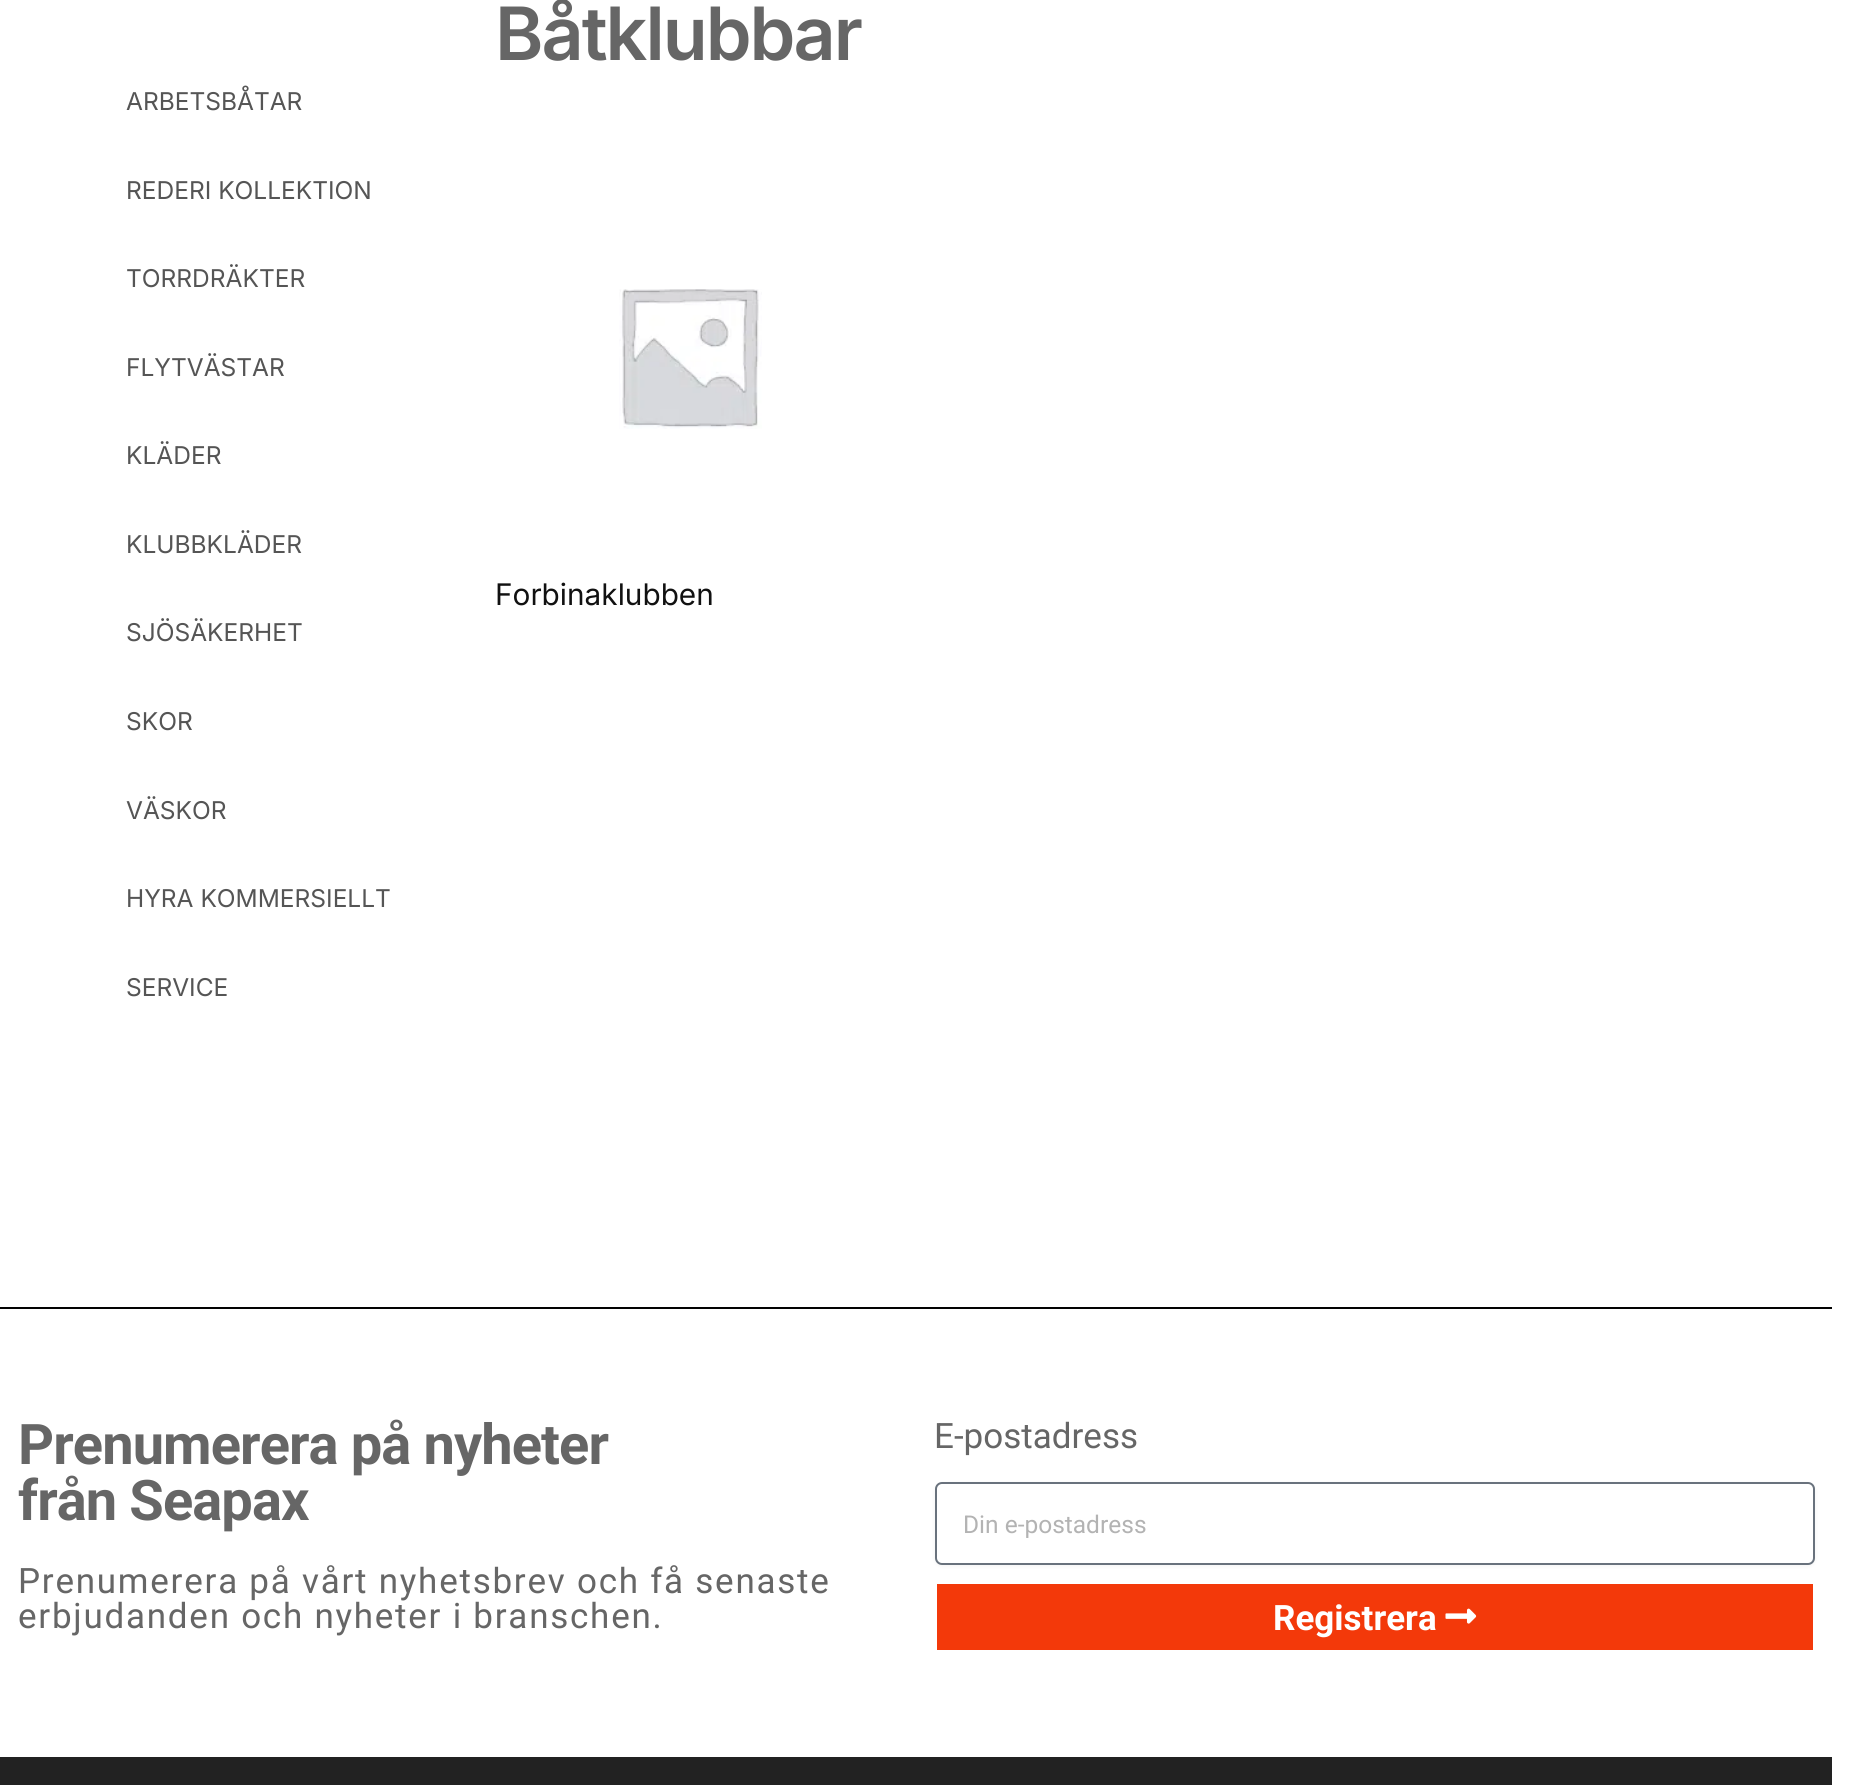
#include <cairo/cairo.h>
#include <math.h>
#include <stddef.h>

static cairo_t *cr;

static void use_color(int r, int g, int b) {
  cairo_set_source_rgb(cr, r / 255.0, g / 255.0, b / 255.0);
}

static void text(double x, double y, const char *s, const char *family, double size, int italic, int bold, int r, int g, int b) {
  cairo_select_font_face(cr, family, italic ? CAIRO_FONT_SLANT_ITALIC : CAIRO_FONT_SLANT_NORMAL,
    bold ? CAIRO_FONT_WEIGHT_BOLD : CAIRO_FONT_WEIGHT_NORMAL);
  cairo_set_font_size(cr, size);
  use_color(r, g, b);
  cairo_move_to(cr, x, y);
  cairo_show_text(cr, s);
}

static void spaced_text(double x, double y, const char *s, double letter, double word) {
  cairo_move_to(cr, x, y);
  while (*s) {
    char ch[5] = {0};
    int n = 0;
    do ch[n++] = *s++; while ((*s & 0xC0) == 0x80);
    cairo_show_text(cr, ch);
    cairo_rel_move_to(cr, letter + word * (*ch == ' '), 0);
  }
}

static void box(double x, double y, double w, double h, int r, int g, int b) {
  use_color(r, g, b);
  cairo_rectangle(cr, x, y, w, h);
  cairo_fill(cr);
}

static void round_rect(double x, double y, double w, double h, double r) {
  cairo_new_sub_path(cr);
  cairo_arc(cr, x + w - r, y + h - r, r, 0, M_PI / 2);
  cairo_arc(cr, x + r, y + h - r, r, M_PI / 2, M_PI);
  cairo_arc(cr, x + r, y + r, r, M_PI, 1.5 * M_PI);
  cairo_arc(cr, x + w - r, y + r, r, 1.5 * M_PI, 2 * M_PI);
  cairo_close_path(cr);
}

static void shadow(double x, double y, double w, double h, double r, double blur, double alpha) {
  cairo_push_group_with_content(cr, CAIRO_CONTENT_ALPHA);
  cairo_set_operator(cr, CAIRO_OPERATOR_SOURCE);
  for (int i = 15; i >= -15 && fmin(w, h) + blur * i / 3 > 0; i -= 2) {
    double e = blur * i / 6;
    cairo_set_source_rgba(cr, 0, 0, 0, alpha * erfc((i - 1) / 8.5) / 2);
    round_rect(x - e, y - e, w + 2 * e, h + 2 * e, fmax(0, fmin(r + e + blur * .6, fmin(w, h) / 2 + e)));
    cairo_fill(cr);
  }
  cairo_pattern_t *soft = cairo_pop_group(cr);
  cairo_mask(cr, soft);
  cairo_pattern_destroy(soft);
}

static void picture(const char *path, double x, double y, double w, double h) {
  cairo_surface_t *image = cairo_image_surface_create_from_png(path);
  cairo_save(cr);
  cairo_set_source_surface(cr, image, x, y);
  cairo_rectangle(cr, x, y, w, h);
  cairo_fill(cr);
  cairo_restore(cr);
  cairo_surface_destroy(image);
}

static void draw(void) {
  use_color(255, 255, 255);
  cairo_paint(cr);
  picture("img_01.png", 619, 289, 143, 140);
  box(0, 1307, 1832, 2, 2, 2, 2);
  use_color(0, 0, 0);
  shadow(935, 1484, 880, 82, 7, 2, 0.05);
  use_color(255, 255, 255);
  round_rect(936, 1483, 878, 81, 6);
  cairo_fill_preserve(cr);
  use_color(105, 114, 125);
  cairo_stroke(cr);
  box(937, 1584, 876, 66, 243, 57, 10);
  picture("img_02.png", 1445, 1608, 32, 16);
  box(0, 1757, 1832, 28, 34, 34, 34);
  text(126, 110, "ARBETSBÅTAR", "Inter", 24.5, 0, 0, 85, 85, 85);
  text(126, 199, "REDERI KOLLEKTION", "Inter", 24.5, 0, 0, 85, 85, 85);
  text(126, 287, "TORRDRÄKTER", "Inter", 24.5, 0, 0, 85, 85, 85);
  text(126, 376, "FLYTVÄSTAR", "Inter", 24.5, 0, 0, 85, 85, 85);
  text(126, 464, "KLÄDER", "Inter", 24.5, 0, 0, 85, 85, 85);
  text(126, 553, "KLUBBKLÄDER", "Inter", 24.5, 0, 0, 85, 85, 85);
  text(126, 641, "SJÖSÄKERHET", "Inter", 24.5, 0, 0, 85, 85, 85);
  text(126, 730, "SKOR", "Inter", 24.5, 0, 0, 85, 85, 85);
  text(126, 819, "VÄSKOR", "Inter", 24.5, 0, 0, 85, 85, 85);
  text(126, 907, "HYRA KOMMERSIELLT", "Inter", 24.5, 0, 0, 85, 85, 85);
  text(126, 996, "SERVICE", "Inter", 24.5, 0, 0, 85, 85, 85);
  cairo_select_font_face(cr, "Inter SemiBold", CAIRO_FONT_SLANT_NORMAL, CAIRO_FONT_WEIGHT_NORMAL);
  cairo_set_font_size(cr, 73.5);
  use_color(102, 102, 102);
  spaced_text(495, 60, "Båtklubbar", -2, 0);
  text(495, 605, "Forbinaklubben", "Inter", 29.75, 0, 0, 17, 17, 17);
  cairo_select_font_face(cr, "Roboto", CAIRO_FONT_SLANT_NORMAL, CAIRO_FONT_WEIGHT_BOLD);
  cairo_set_font_size(cr, 56);
  use_color(102, 102, 102);
  spaced_text(18, 1464, "Prenumerera på nyheter", -0.9, 0);
  spaced_text(18, 1520, "från Seapax", -0.9, 0);
  cairo_select_font_face(cr, "Roboto", CAIRO_FONT_SLANT_NORMAL, CAIRO_FONT_WEIGHT_NORMAL);
  cairo_set_font_size(cr, 35);
  spaced_text(18, 1593, "Prenumerera på vårt nyhetsbrev och få senaste", 1.75, 0);
  spaced_text(18, 1628, "erbjudanden och nyheter i branschen.", 1.75, 0);
  text(934, 1448, "E-postadress", "Roboto", 35, 0, 0, 102, 102, 102);
  text(963, 1533, "Din e-postadress", "Roboto", 24.5, 0, 0, 179, 179, 179);
  text(1273, 1630, "Registrera", "Roboto", 35, 0, 1, 255, 255, 255);
}

int main(void) {
  cairo_surface_t *surface = cairo_image_surface_create(CAIRO_FORMAT_RGB24, 1858, 1785);
  cr = cairo_create(surface);
  cairo_font_options_t *options = cairo_font_options_create();
  cairo_font_options_set_hint_metrics(options, CAIRO_HINT_METRICS_OFF);
  cairo_font_options_set_hint_style(options, CAIRO_HINT_STYLE_NONE);
  cairo_set_font_options(cr, options);
  cairo_set_miter_limit(cr, 4);
  draw();
  cairo_surface_write_to_png(surface, "out.png");
  cairo_font_options_destroy(options);
  cairo_destroy(cr);
  cairo_surface_destroy(surface);
  return 0;
}
